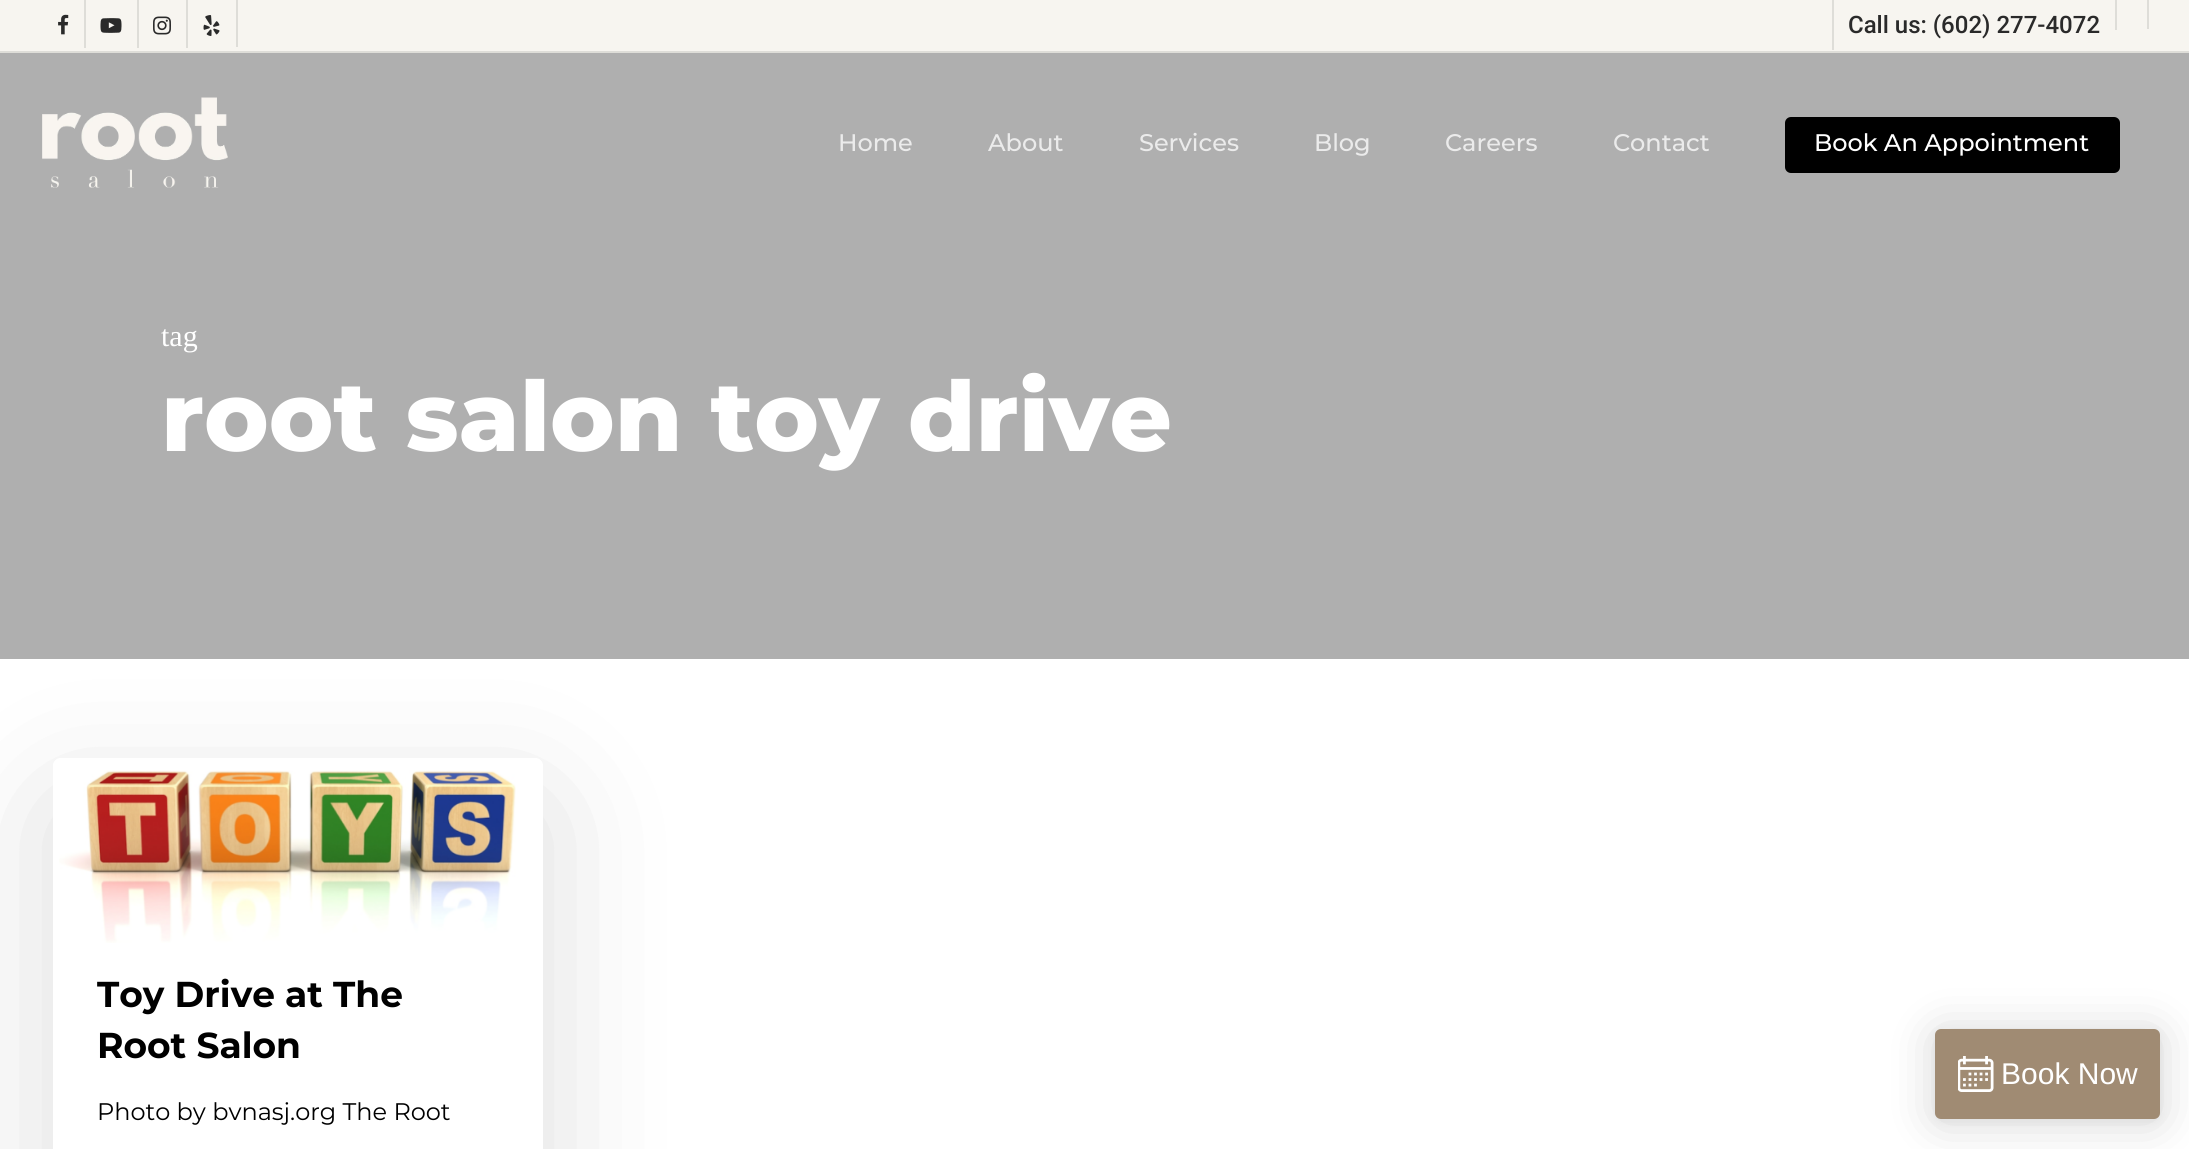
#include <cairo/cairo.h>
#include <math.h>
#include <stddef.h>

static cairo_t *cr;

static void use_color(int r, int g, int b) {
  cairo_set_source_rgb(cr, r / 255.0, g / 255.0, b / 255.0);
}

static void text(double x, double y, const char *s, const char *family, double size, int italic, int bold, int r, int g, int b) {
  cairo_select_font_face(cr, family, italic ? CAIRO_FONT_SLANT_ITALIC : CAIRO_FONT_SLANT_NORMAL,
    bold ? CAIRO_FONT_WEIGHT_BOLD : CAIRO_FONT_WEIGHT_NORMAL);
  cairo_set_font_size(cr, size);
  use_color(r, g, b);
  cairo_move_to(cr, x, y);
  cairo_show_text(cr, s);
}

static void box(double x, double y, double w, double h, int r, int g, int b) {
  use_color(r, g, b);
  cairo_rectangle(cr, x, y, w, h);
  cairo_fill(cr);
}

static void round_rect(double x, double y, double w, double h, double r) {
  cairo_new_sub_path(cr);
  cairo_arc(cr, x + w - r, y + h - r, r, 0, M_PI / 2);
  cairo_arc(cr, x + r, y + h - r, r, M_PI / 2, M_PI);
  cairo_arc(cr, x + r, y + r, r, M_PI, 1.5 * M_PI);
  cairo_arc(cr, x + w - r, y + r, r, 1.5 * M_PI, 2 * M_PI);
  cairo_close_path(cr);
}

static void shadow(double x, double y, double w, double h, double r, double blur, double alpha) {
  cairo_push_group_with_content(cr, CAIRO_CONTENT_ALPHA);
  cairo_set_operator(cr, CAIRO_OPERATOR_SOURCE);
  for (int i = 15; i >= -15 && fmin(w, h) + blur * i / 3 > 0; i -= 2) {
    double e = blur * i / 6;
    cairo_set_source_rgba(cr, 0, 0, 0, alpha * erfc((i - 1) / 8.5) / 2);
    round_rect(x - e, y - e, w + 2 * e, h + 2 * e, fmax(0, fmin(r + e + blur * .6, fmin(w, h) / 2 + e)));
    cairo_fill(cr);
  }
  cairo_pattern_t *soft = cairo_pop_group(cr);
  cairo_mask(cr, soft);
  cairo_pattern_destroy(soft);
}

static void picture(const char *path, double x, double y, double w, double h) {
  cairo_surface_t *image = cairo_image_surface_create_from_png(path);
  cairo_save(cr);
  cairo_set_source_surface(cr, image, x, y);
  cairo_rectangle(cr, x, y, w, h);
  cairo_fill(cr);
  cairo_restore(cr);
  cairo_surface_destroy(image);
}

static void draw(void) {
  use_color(255, 255, 255);
  cairo_paint(cr);
  box(0, 0, 2189, 51, 247, 245, 240);
  box(0, 51, 2189, 2, 222, 221, 216);
  picture("img_01.png", 58, 14, 11, 21);
  box(84, 0, 2, 48, 222, 221, 216);
  picture("img_02.png", 100, 18, 22, 15);
  box(137, 0, 2, 48, 222, 221, 216);
  picture("img_03.png", 153, 16, 18, 19);
  box(236, 0, 2, 47, 222, 221, 216);
  box(186, 0, 2, 48, 222, 221, 216);
  picture("img_04.png", 203, 15, 17, 21);
  box(1832, 0, 2, 50, 222, 221, 216);
  box(2147, 0, 2, 29, 222, 221, 216);
  box(2115, 0, 2, 30, 222, 221, 216);
  box(0, 53, 2189, 606, 175, 175, 175);
  picture("img_05.png", 42, 97, 186, 91);
  use_color(0, 0, 0);
  round_rect(1785, 117, 335, 56, 6);
  cairo_fill(cr);
  cairo_save(cr);
  cairo_set_fill_rule(cr, CAIRO_FILL_RULE_EVEN_ODD);
  cairo_new_path(cr);
  cairo_move_to(cr, 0, 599);
  cairo_line_to(cr, 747, 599);
  cairo_line_to(cr, 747, 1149);
  cairo_line_to(cr, 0, 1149);
  cairo_close_path(cr);
  cairo_move_to(cr, 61, 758);
  cairo_line_to(cr, 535, 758);
  cairo_curve_to(cr, 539.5, 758, 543, 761.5, 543, 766);
  cairo_line_to(cr, 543, 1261);
  cairo_curve_to(cr, 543, 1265.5, 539.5, 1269, 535, 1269);
  cairo_line_to(cr, 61, 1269);
  cairo_curve_to(cr, 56.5, 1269, 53, 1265.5, 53, 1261);
  cairo_line_to(cr, 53, 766);
  cairo_curve_to(cr, 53, 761.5, 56.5, 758, 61, 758);
  cairo_close_path(cr);
  cairo_clip(cr);
  use_color(0, 0, 0);
  shadow(53, 803, 490, 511, 8, 67.5, 0.14);
  cairo_restore(cr);
  picture("img_06.png", 59, 770, 457, 173);
  use_color(0, 0, 0);
  shadow(1935, 1032, 225, 90, 6, 24, 0.16);
  shadow(1935, 1031, 225, 90, 6, 4.5, 0.06);
  use_color(160, 139, 115);
  round_rect(1935, 1029, 225, 90, 6);
  cairo_fill(cr);
  picture("img_07.png", 1958, 1056, 36, 36);
  text(1848, 33, "Call us: (602) 277-4072", "Roboto Medium", 24, 0, 0, 42, 42, 42);
  text(838, 151, "Home", "Montserrat Medium", 24, 0, 0, 235, 235, 235);
  text(988, 151, "About", "Montserrat Medium", 24, 0, 0, 235, 235, 235);
  text(1139, 151, "Services", "Montserrat Medium", 24, 0, 0, 235, 235, 235);
  text(1314, 151, "Blog", "Montserrat Medium", 24, 0, 0, 235, 235, 235);
  text(1445, 151, "Careers", "Montserrat Medium", 24, 0, 0, 235, 235, 235);
  text(1613, 151, "Contact", "Montserrat Medium", 24, 0, 0, 235, 235, 235);
  text(1814, 151, "Book An Appointment", "Montserrat Medium", 24, 0, 0, 255, 255, 255);
  text(161, 346, "tag", "Liberation Serif", 30, 0, 0, 255, 255, 255);
  text(161, 451, "root salon toy drive", "Montserrat ExtraBold", 97.25, 0, 0, 255, 255, 255);
  text(97, 1007, "Toy Drive at The", "Montserrat", 36, 0, 1, 0, 0, 0);
  text(97, 1058, "Root Salon", "Montserrat", 36, 0, 1, 0, 0, 0);
  text(97, 1120, "Photo by bvnasj.org The Root", "Montserrat", 24, 0, 0, 0, 0, 0);
  text(2001, 1084, "Book Now", "Liberation Sans", 30, 0, 0, 255, 255, 255);
}

int main(void) {
  cairo_surface_t *surface = cairo_image_surface_create(CAIRO_FORMAT_RGB24, 2189, 1149);
  cr = cairo_create(surface);
  cairo_font_options_t *options = cairo_font_options_create();
  cairo_font_options_set_hint_metrics(options, CAIRO_HINT_METRICS_OFF);
  cairo_font_options_set_hint_style(options, CAIRO_HINT_STYLE_NONE);
  cairo_set_font_options(cr, options);
  cairo_set_miter_limit(cr, 4);
  draw();
  cairo_surface_write_to_png(surface, "out.png");
  cairo_font_options_destroy(options);
  cairo_destroy(cr);
  cairo_surface_destroy(surface);
  return 0;
}
